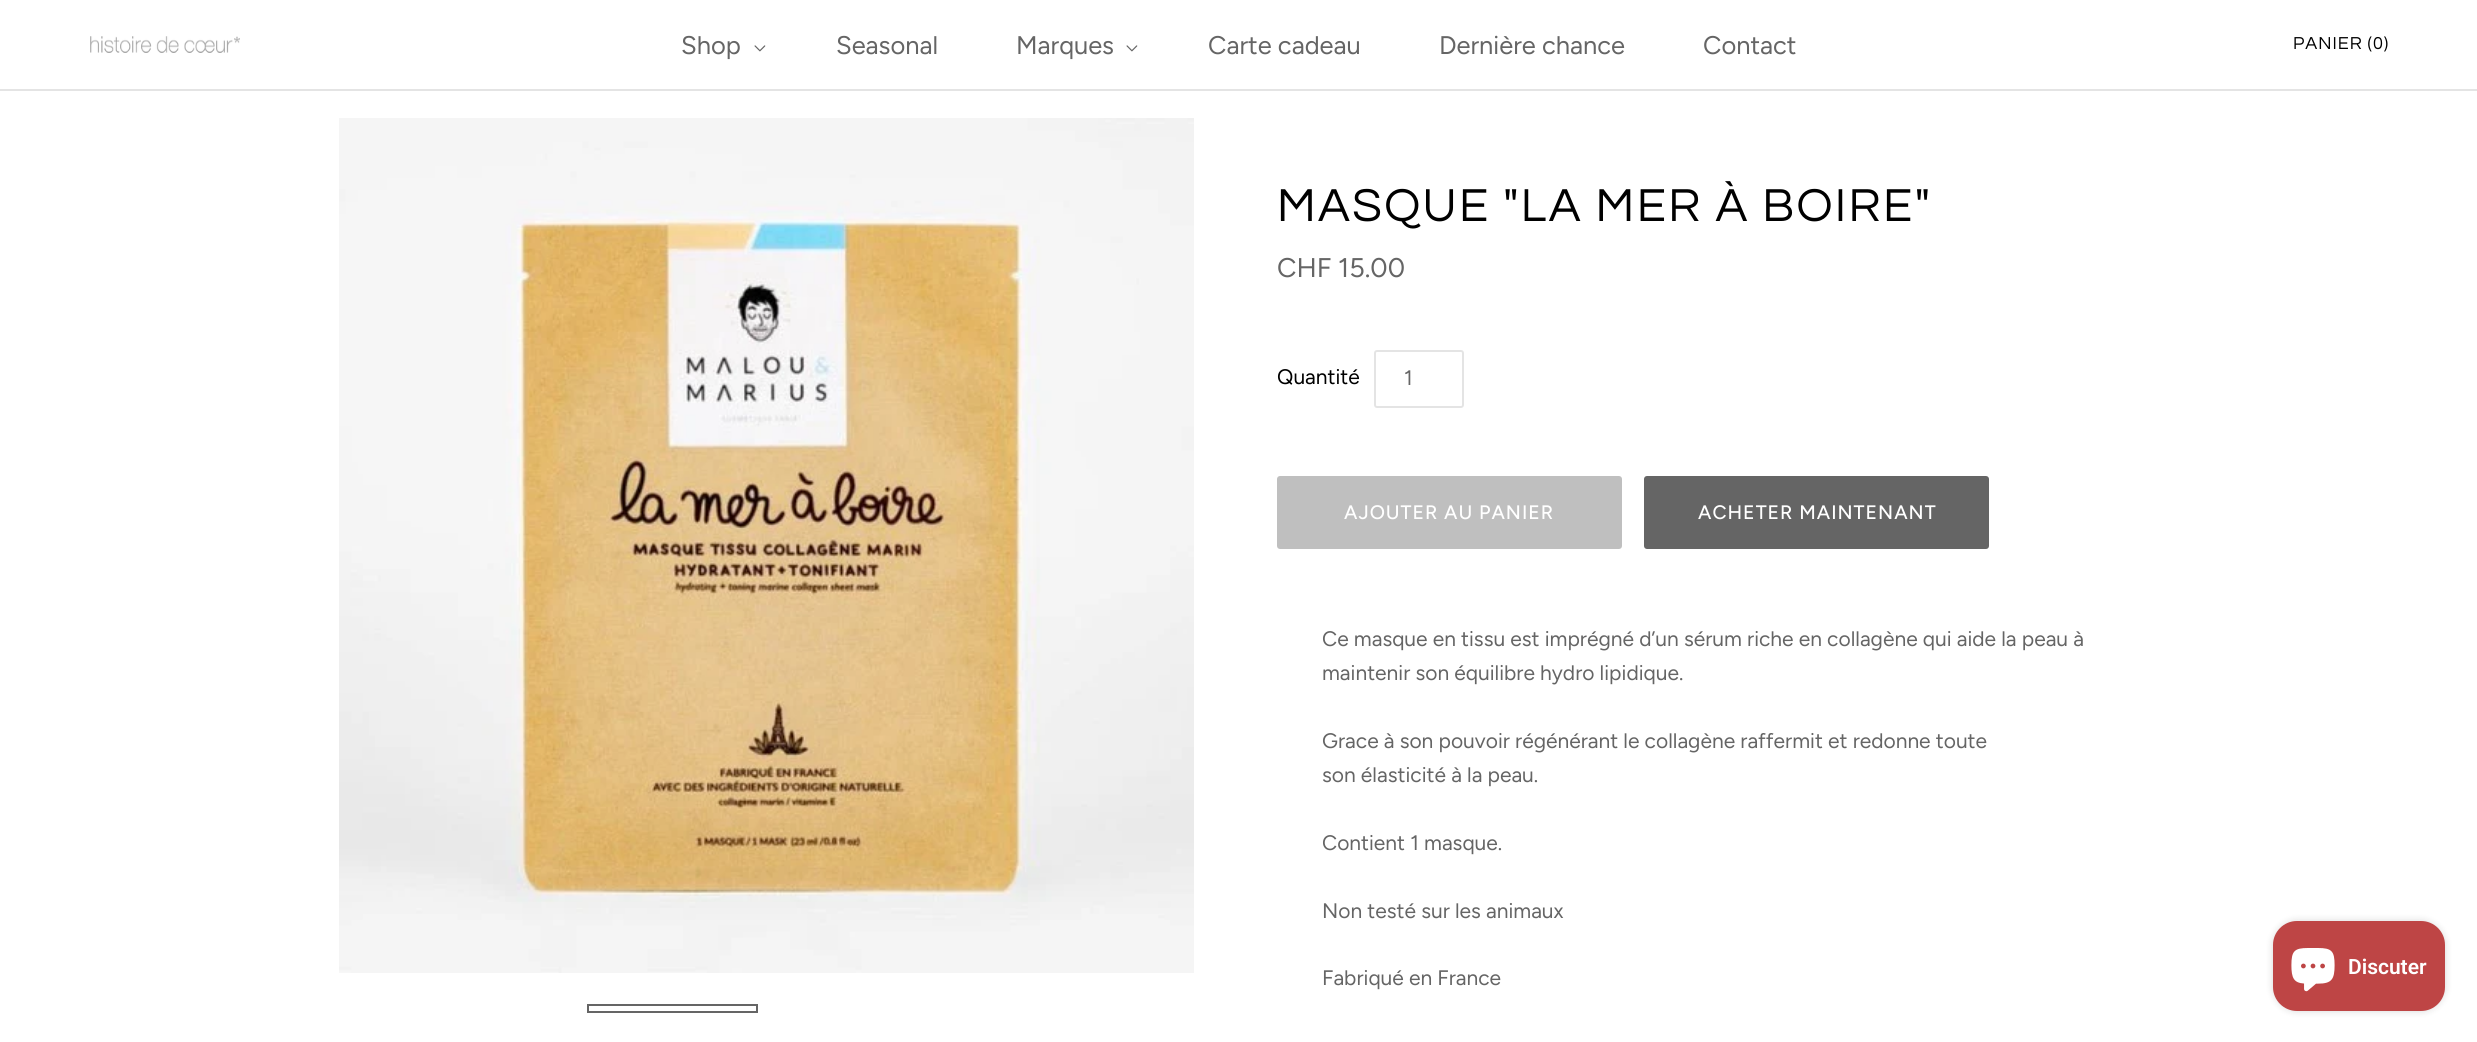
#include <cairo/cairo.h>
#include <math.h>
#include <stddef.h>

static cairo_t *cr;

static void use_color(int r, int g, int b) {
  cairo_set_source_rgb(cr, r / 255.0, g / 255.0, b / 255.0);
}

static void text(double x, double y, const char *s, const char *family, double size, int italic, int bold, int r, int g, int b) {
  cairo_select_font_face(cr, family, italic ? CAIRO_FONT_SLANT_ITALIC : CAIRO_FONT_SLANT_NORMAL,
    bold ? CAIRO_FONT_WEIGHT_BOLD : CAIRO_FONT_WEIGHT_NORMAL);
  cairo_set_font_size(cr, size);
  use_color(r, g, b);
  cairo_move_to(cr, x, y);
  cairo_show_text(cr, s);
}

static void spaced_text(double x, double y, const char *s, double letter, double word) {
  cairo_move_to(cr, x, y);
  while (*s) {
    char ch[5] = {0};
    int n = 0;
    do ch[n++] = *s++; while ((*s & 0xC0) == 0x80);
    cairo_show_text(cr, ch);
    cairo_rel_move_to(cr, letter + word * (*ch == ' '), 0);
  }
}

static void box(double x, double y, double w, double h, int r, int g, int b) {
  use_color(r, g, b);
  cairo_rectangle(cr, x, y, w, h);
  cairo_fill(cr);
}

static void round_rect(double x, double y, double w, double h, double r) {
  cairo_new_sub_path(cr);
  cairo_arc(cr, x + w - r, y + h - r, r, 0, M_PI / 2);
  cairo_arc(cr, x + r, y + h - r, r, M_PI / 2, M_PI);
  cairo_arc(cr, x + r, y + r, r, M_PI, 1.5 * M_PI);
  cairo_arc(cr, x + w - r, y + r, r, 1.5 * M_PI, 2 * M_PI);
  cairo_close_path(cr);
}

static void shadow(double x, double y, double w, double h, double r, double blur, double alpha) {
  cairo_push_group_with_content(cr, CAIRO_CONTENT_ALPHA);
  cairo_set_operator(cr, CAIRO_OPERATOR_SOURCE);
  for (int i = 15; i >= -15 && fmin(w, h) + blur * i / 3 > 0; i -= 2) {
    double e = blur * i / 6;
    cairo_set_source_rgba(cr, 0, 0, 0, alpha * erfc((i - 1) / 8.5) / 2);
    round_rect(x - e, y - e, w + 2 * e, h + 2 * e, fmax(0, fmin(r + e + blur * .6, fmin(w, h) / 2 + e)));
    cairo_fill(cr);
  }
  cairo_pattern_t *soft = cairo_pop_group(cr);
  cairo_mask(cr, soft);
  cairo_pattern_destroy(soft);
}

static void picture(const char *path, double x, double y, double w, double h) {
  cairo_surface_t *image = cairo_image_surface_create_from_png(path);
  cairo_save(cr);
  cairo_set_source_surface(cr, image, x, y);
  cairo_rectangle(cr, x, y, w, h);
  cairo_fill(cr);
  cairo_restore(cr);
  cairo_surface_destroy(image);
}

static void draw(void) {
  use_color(255, 255, 255);
  cairo_paint(cr);
  box(0, 89, 2477, 2, 228, 228, 228);
  picture("img_01.png", 90, 36, 150, 17);
  picture("img_02.png", 754, 45, 12, 7);
  picture("img_02.png", 1126, 45, 12, 7);
  picture("img_03.png", 339, 118, 855, 855);
  cairo_rectangle(cr, 588, 1005, 169, 7);
  use_color(101, 101, 101);
  cairo_stroke(cr);
  round_rect(1375, 351, 88, 56, 2);
  use_color(228, 228, 228);
  cairo_stroke(cr);
  use_color(191, 191, 191);
  round_rect(1277, 476, 345, 73, 3);
  cairo_fill(cr);
  use_color(101, 101, 101);
  round_rect(1644, 476, 345, 73, 3);
  cairo_fill(cr);
  use_color(0, 0, 0);
  shadow(2273, 921, 172, 90, 24, 4, 0.15);
  use_color(190, 69, 69);
  round_rect(2273, 921, 172, 90, 24);
  cairo_fill(cr);
  picture("img_04.png", 2291, 948, 44, 44);
  text(681, 54, "Shop", "Figtree", 25.5, 0, 0, 101, 101, 101);
  text(836, 54, "Seasonal", "Figtree", 25.5, 0, 0, 101, 101, 101);
  text(1016, 54, "Marques", "Figtree", 25.5, 0, 0, 101, 101, 101);
  text(1208, 54, "Carte cadeau", "Figtree", 25.5, 0, 0, 101, 101, 101);
  text(1439, 54, "Dernière chance", "Figtree", 25.5, 0, 0, 101, 101, 101);
  text(1703, 54, "Contact", "Figtree", 25.5, 0, 0, 101, 101, 101);
  cairo_select_font_face(cr, "Questrial", CAIRO_FONT_SLANT_NORMAL, CAIRO_FONT_WEIGHT_NORMAL);
  cairo_set_font_size(cr, 18);
  use_color(0, 0, 0);
  spaced_text(2293, 49, "PANIER (0)", 1, 0);
  cairo_set_font_size(cr, 48);
  spaced_text(1277, 221, "MASQUE \"LA MER À BOIRE\"", 2.4, 0);
  text(1277, 277, "CHF 15.00", "Figtree", 27, 0, 0, 101, 101, 101);
  text(1277, 384, "Quantité", "Figtree", 21, 0, 0, 0, 0, 0);
  text(1404, 385, "1", "Figtree", 21, 0, 0, 101, 101, 101);
  cairo_select_font_face(cr, "Figtree Medium", CAIRO_FONT_SLANT_NORMAL, CAIRO_FONT_WEIGHT_NORMAL);
  cairo_set_font_size(cr, 19.5);
  use_color(255, 255, 255);
  spaced_text(1344, 519, "AJOUTER AU PANIER", 1, 0);
  spaced_text(1698, 519, "ACHETER MAINTENANT", 1, 0);
  text(1322, 646, "Ce masque en tissu est imprégné d’un sérum riche en collagène qui aide la peau à", "Figtree", 21, 0, 0, 101, 101, 101);
  text(1322, 680, "maintenir son équilibre hydro lipidique.", "Figtree", 21, 0, 0, 101, 101, 101);
  text(1322, 748, "Grace à son pouvoir régénérant le collagène raffermit et redonne toute", "Figtree", 21, 0, 0, 101, 101, 101);
  text(1322, 782, "son élasticité à la peau.", "Figtree", 21, 0, 0, 101, 101, 101);
  text(1322, 850, "Contient 1 masque.", "Figtree", 21, 0, 0, 101, 101, 101);
  text(1322, 918, "Non testé sur les animaux", "Figtree", 21, 0, 0, 101, 101, 101);
  text(1322, 985, "Fabriqué en France", "Figtree", 21, 0, 0, 101, 101, 101);
  text(2348, 974, "Discuter", "Roboto SemiBold", 21, 0, 0, 255, 255, 255);
}

int main(void) {
  cairo_surface_t *surface = cairo_image_surface_create(CAIRO_FORMAT_RGB24, 2477, 1042);
  cr = cairo_create(surface);
  cairo_font_options_t *options = cairo_font_options_create();
  cairo_font_options_set_hint_metrics(options, CAIRO_HINT_METRICS_OFF);
  cairo_font_options_set_hint_style(options, CAIRO_HINT_STYLE_NONE);
  cairo_set_font_options(cr, options);
  cairo_set_miter_limit(cr, 4);
  draw();
  cairo_surface_write_to_png(surface, "out.png");
  cairo_font_options_destroy(options);
  cairo_destroy(cr);
  cairo_surface_destroy(surface);
  return 0;
}
